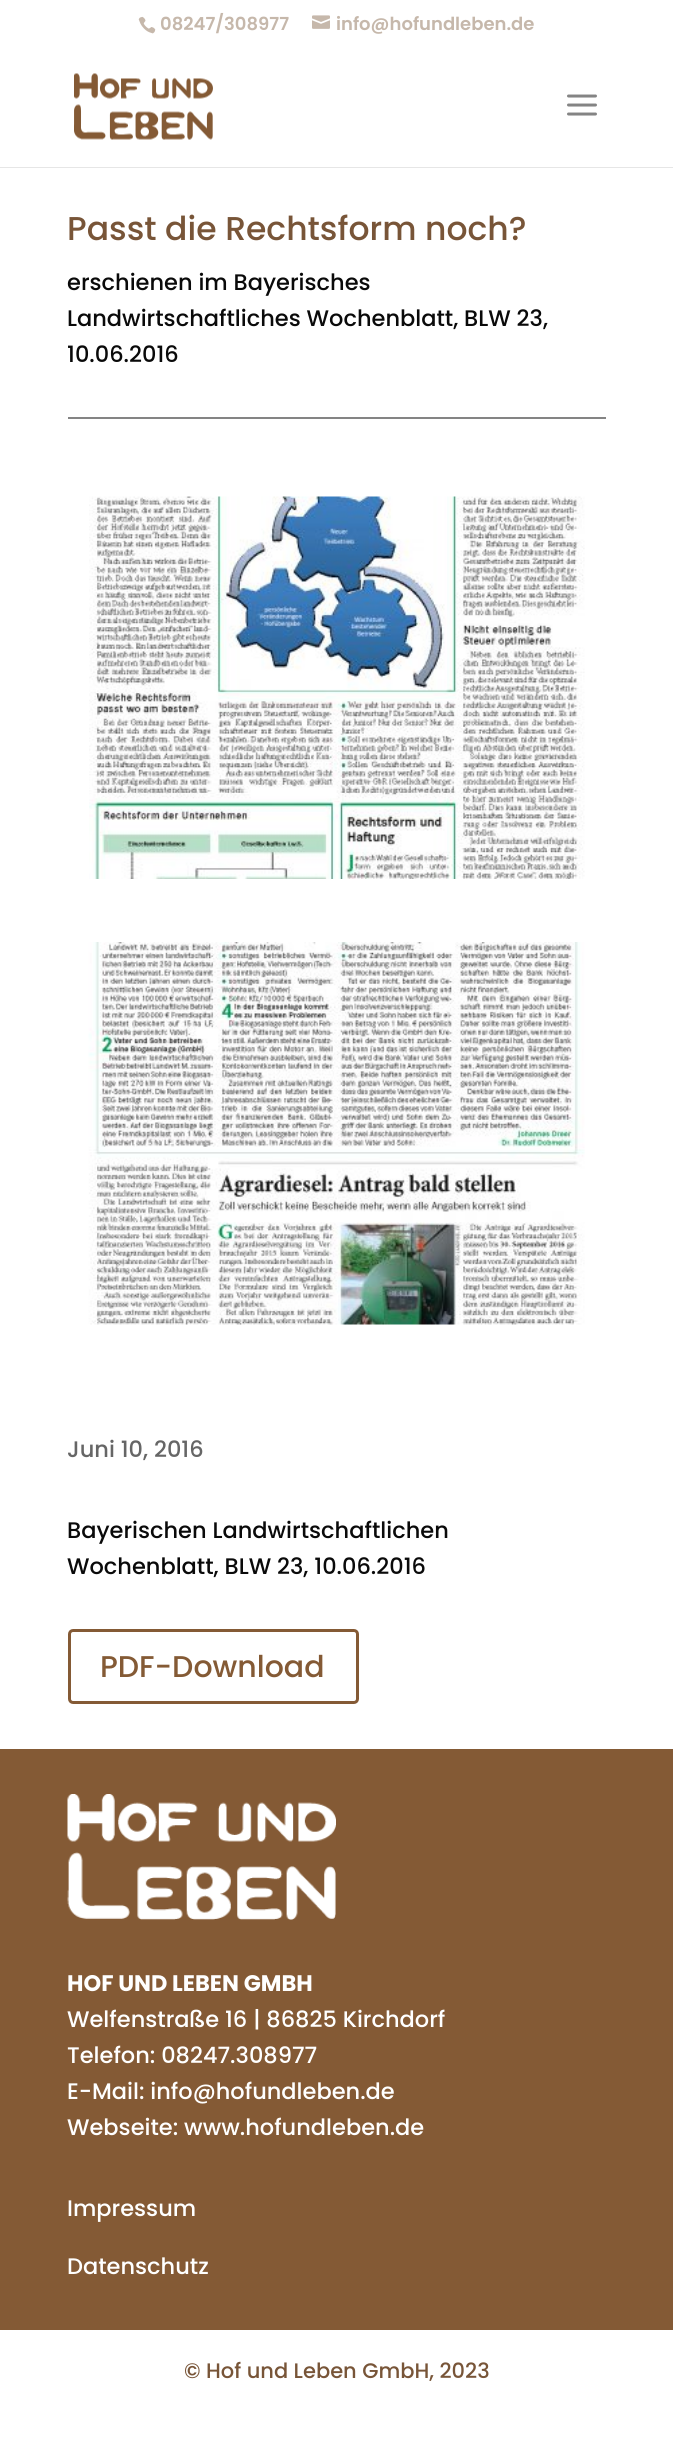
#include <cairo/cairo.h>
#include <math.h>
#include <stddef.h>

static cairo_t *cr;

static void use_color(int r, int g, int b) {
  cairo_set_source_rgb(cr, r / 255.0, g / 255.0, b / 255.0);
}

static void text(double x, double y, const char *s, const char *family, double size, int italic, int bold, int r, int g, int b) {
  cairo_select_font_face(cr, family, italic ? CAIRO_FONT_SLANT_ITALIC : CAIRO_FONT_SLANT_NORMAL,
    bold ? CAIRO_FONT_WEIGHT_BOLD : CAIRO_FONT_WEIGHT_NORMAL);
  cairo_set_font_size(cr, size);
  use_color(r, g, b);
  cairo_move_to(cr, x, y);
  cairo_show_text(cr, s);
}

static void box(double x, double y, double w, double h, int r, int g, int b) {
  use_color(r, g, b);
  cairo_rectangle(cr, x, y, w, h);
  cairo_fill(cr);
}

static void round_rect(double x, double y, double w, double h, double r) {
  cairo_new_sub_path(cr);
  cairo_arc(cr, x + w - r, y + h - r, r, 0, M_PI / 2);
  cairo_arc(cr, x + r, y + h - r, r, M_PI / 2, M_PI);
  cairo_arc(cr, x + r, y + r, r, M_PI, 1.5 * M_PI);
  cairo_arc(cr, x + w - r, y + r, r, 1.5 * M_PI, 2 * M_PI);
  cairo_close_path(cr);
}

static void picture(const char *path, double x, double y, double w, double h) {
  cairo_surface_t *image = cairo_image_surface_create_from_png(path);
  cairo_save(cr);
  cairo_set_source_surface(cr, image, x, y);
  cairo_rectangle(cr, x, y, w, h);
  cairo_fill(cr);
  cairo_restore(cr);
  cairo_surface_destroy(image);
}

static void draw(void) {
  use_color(255, 255, 255);
  cairo_paint(cr);
  picture("img_01.png", 138, 16, 18, 18);
  picture("img_02.png", 312, 15, 18, 14);
  use_color(230, 230, 230);
  cairo_new_path(cr);
  cairo_move_to(cr, 0, 166);
  cairo_line_to(cr, 0, 168);
  cairo_line_to(cr, 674, 168);
  cairo_line_to(cr, 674, 48);
  cairo_line_to(cr, 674, 166);
  cairo_close_path(cr);
  cairo_fill(cr);
  box(0, 166, 673, 1, 255, 255, 255);
  picture("img_03.png", 74, 73, 139, 67);
  picture("img_04.png", 567, 94, 30, 22);
  box(68, 417, 538, 2, 132, 132, 132);
  picture("img_05.png", 89, 496, 496, 383);
  picture("img_06.png", 88, 942, 497, 383);
  round_rect(69.5, 1630.5, 288, 72, 3.5);
  use_color(132, 90, 53);
  cairo_set_line_width(cr, 3);
  cairo_stroke(cr);
  box(0, 1749, 673, 581, 132, 90, 53);
  picture("img_07.png", 67, 1794, 269, 126);
  text(160, 30, "08247/308977", "Poppins SemiBold", 18, 0, 0, 198, 184, 171);
  text(336, 30, "info@hofundleben.de", "Poppins SemiBold", 18, 0, 0, 198, 184, 171);
  text(67, 240, "Passt die Rechtsform noch?", "Poppins Medium", 33, 0, 0, 120, 85, 56);
  text(67, 290, "erschienen im Bayerisches", "Poppins Medium", 22.5, 0, 0, 10, 10, 10);
  text(67, 326, "Landwirtschaftliches Wochenblatt, BLW 23,", "Poppins Medium", 22.5, 0, 0, 10, 10, 10);
  text(67, 362, "10.06.2016", "Poppins Medium", 22.5, 0, 0, 10, 10, 10);
  text(67, 1457, "Juni 10, 2016", "Poppins Medium", 22.5, 0, 0, 102, 102, 102);
  text(67, 1538, "Bayerischen Landwirtschaftlichen", "Poppins Medium", 22.5, 0, 0, 10, 10, 10);
  text(67, 1574, "Wochenblatt, BLW 23, 10.06.2016", "Poppins Medium", 22.5, 0, 0, 10, 10, 10);
  text(100, 1677, "PDF-Download", "Poppins Medium", 30, 0, 0, 132, 90, 53);
  text(67, 1991, "HOF UND LEBEN GMBH", "Poppins", 22.5, 0, 1, 255, 255, 255);
  text(67, 2027, "Welfenstraße 16 | 86825 Kirchdorf", "Poppins Medium", 22.5, 0, 0, 255, 255, 255);
  text(67, 2063, "Telefon: 08247.308977", "Poppins Medium", 22.5, 0, 0, 255, 255, 255);
  text(67, 2099, "E-Mail: info@hofundleben.de", "Poppins Medium", 22.5, 0, 0, 255, 255, 255);
  text(67, 2135, "Webseite: www.hofundleben.de", "Poppins Medium", 22.5, 0, 0, 255, 255, 255);
  text(67, 2216, "Impressum", "Poppins Medium", 22.5, 0, 0, 255, 255, 255);
  text(67, 2274, "Datenschutz", "Poppins Medium", 22.5, 0, 0, 255, 255, 255);
  text(184, 2378, "© Hof und Leben GmbH, 2023", "Poppins Medium", 21, 0, 0, 120, 85, 56);
}

int main(void) {
  cairo_surface_t *surface = cairo_image_surface_create(CAIRO_FORMAT_RGB24, 673, 2449);
  cr = cairo_create(surface);
  cairo_font_options_t *options = cairo_font_options_create();
  cairo_font_options_set_hint_metrics(options, CAIRO_HINT_METRICS_OFF);
  cairo_font_options_set_hint_style(options, CAIRO_HINT_STYLE_NONE);
  cairo_set_font_options(cr, options);
  cairo_set_miter_limit(cr, 4);
  draw();
  cairo_surface_write_to_png(surface, "out.png");
  cairo_font_options_destroy(options);
  cairo_destroy(cr);
  cairo_surface_destroy(surface);
  return 0;
}
